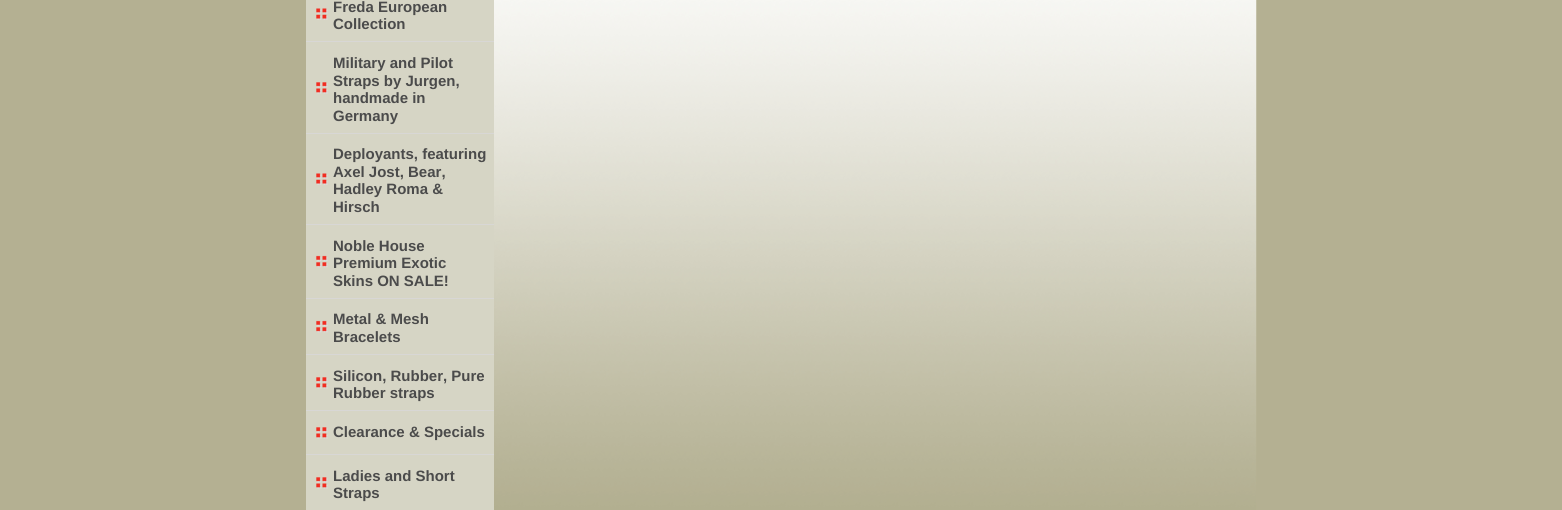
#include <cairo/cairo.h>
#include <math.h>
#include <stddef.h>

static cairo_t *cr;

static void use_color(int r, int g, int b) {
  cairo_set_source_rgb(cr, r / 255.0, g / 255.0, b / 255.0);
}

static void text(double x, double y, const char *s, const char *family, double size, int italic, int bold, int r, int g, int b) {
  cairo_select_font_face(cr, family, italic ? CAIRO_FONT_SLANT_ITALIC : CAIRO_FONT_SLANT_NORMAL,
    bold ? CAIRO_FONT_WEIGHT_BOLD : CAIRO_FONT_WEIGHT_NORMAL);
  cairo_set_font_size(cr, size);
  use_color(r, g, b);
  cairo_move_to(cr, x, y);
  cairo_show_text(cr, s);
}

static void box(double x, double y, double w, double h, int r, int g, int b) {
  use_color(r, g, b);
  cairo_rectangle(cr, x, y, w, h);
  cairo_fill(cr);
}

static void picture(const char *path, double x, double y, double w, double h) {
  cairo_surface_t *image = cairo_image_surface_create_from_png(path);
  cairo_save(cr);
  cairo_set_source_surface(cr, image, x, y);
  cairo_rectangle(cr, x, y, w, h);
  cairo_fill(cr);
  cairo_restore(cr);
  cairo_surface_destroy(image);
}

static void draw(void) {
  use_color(180, 176, 146);
  cairo_paint(cr);
  picture("img_01.png", 494, 0, 763, 510);
  box(306, 0, 188, 510, 214, 213, 197);
  picture("img_02.png", 316, 8, 12, 12);
  box(306, 41, 188, 1, 216, 215, 213);
  picture("img_03.png", 316, 82, 12, 12);
  box(306, 133, 188, 1, 216, 215, 213);
  picture("img_02.png", 316, 173, 12, 12);
  box(306, 224, 188, 1, 216, 215, 213);
  picture("img_04.png", 316, 255, 12, 13);
  box(306, 298, 188, 1, 216, 215, 213);
  picture("img_04.png", 316, 320, 12, 13);
  box(306, 354, 188, 1, 216, 215, 213);
  picture("img_03.png", 316, 377, 12, 12);
  box(306, 410, 188, 1, 216, 215, 213);
  picture("img_03.png", 316, 427, 12, 12);
  box(306, 454, 188, 1, 216, 215, 213);
  picture("img_03.png", 316, 477, 12, 12);
  text(333, 12, "Freda European", "Liberation Sans", 15, 0, 1, 75, 75, 75);
  text(333, 29, "Collection", "Liberation Sans", 15, 0, 1, 75, 75, 75);
  text(333, 68, "Military and Pilot", "Liberation Sans", 15, 0, 1, 75, 75, 75);
  text(333, 86, "Straps by Jurgen,", "Liberation Sans", 15, 0, 1, 75, 75, 75);
  text(333, 103, "handmade in", "Liberation Sans", 15, 0, 1, 75, 75, 75);
  text(333, 121, "Germany", "Liberation Sans", 15, 0, 1, 75, 75, 75);
  text(333, 159, "Deployants, featuring", "Liberation Sans", 15, 0, 1, 75, 75, 75);
  text(333, 177, "Axel Jost, Bear,", "Liberation Sans", 15, 0, 1, 75, 75, 75);
  text(333, 194, "Hadley Roma &", "Liberation Sans", 15, 0, 1, 75, 75, 75);
  text(333, 212, "Hirsch", "Liberation Sans", 15, 0, 1, 75, 75, 75);
  text(333, 251, "Noble House", "Liberation Sans", 15, 0, 1, 75, 75, 75);
  text(333, 268, "Premium Exotic", "Liberation Sans", 15, 0, 1, 75, 75, 75);
  text(333, 286, "Skins ON SALE!", "Liberation Sans", 15, 0, 1, 75, 75, 75);
  text(333, 324, "Metal & Mesh", "Liberation Sans", 15, 0, 1, 75, 75, 75);
  text(333, 342, "Bracelets", "Liberation Sans", 15, 0, 1, 75, 75, 75);
  text(333, 381, "Silicon, Rubber, Pure", "Liberation Sans", 15, 0, 1, 75, 75, 75);
  text(333, 398, "Rubber straps", "Liberation Sans", 15, 0, 1, 75, 75, 75);
  text(333, 437, "Clearance & Specials", "Liberation Sans", 15, 0, 1, 75, 75, 75);
  text(333, 481, "Ladies and Short", "Liberation Sans", 15, 0, 1, 75, 75, 75);
  text(333, 498, "Straps", "Liberation Sans", 15, 0, 1, 75, 75, 75);
}

int main(void) {
  cairo_surface_t *surface = cairo_image_surface_create(CAIRO_FORMAT_RGB24, 1562, 510);
  cr = cairo_create(surface);
  cairo_font_options_t *options = cairo_font_options_create();
  cairo_font_options_set_hint_metrics(options, CAIRO_HINT_METRICS_OFF);
  cairo_font_options_set_hint_style(options, CAIRO_HINT_STYLE_NONE);
  cairo_set_font_options(cr, options);
  cairo_set_miter_limit(cr, 4);
  draw();
  cairo_surface_write_to_png(surface, "out.png");
  cairo_font_options_destroy(options);
  cairo_destroy(cr);
  cairo_surface_destroy(surface);
  return 0;
}
